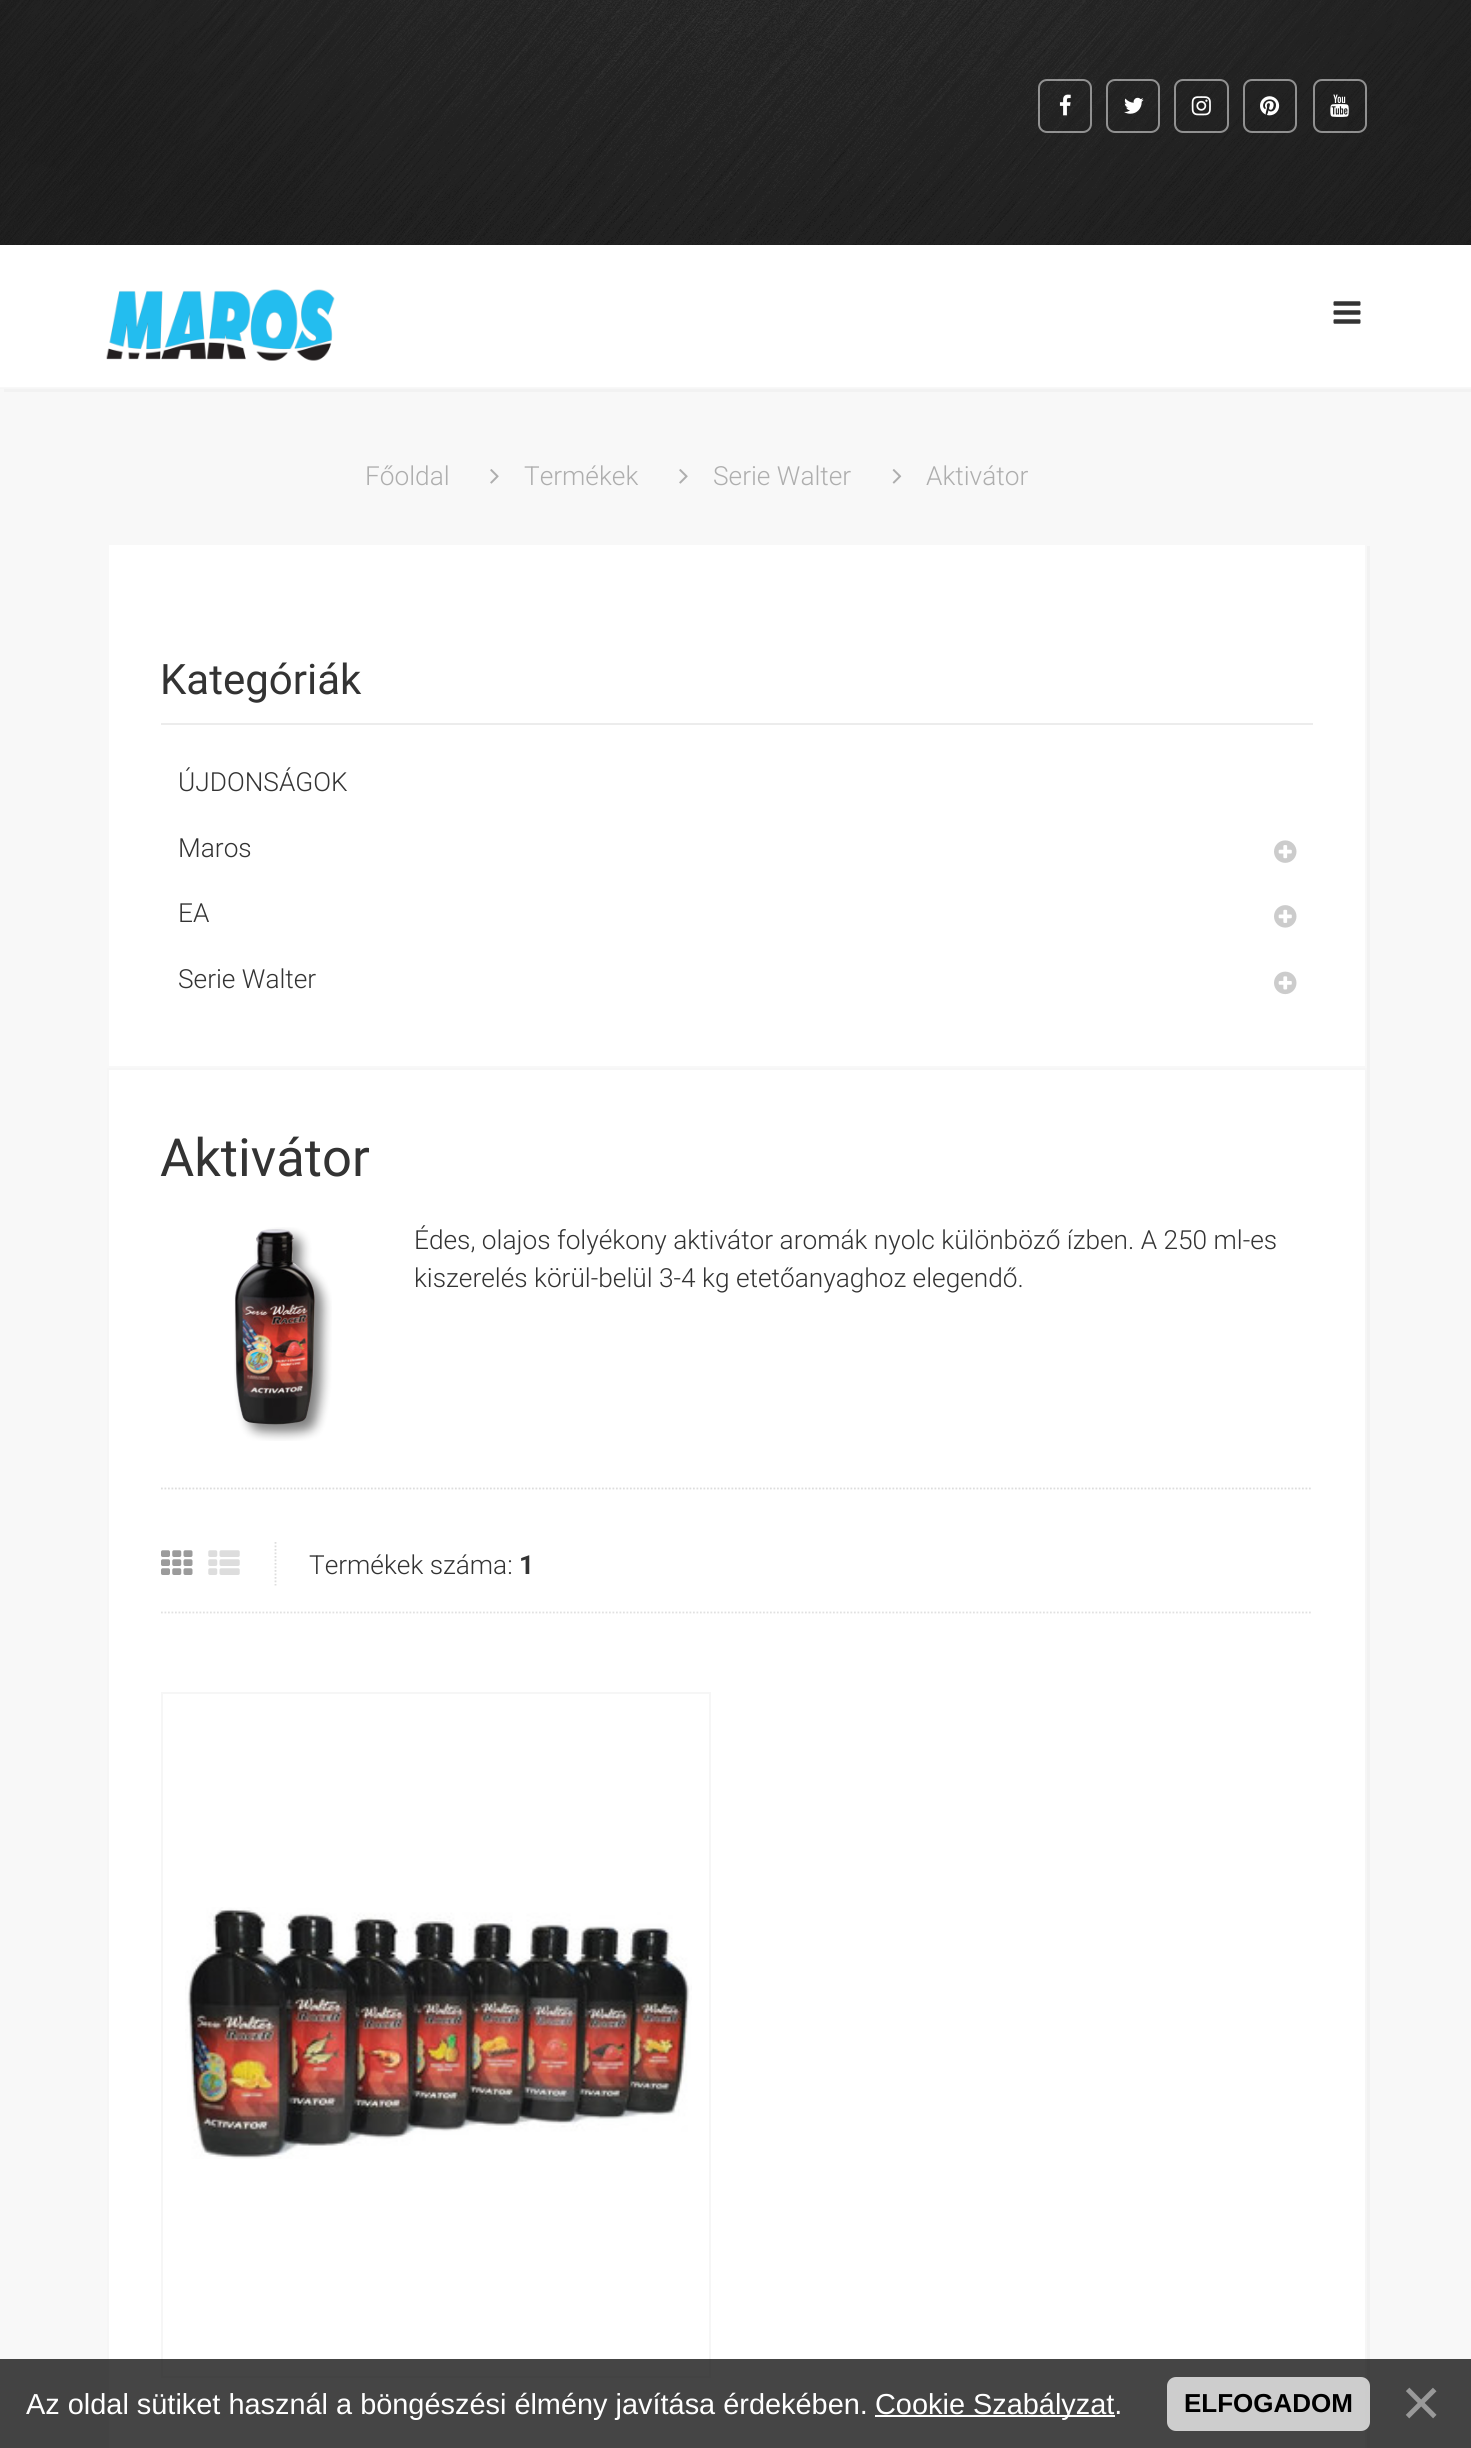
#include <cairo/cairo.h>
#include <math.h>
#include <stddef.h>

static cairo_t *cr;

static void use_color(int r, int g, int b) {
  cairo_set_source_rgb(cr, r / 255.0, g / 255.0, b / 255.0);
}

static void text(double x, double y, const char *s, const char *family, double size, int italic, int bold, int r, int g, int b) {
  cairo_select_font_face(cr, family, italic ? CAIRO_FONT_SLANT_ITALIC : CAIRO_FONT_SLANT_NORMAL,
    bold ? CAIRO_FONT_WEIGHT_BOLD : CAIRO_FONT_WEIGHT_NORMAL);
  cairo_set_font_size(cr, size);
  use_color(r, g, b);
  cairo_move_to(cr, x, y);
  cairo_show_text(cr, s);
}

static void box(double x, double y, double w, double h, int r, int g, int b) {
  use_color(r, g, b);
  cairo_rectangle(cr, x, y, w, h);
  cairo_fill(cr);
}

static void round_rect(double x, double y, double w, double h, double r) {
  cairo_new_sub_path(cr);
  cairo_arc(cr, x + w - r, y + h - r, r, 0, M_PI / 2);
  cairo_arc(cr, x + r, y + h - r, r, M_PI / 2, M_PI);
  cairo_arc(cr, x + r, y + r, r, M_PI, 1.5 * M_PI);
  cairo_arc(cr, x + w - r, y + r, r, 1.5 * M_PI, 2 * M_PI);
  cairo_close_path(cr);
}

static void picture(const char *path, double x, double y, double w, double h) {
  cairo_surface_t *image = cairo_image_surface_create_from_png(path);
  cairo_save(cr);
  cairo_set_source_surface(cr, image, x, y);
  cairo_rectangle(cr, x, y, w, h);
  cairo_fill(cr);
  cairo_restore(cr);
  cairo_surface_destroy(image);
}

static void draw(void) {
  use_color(248, 248, 248);
  cairo_paint(cr);
  use_color(242, 242, 242);
  cairo_new_path(cr);
  cairo_move_to(cr, 4, 388);
  cairo_line_to(cr, 4, 392);
  cairo_line_to(cr, 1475, 392);
  cairo_line_to(cr, 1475, 4);
  cairo_line_to(cr, 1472, 4);
  cairo_line_to(cr, 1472, 388);
  cairo_close_path(cr);
  cairo_fill(cr);
  box(0, 245, 1471, 142, 255, 255, 255);
  box(0, 388, 1471, 1, 246, 246, 246);
  picture("img_01.png", 0, 0, 1471, 245);
  round_rect(1039, 80, 52, 52, 8);
  cairo_set_source_rgba(cr, 1, 1, 1, 0.5);
  cairo_stroke(cr);
  picture("img_02.png", 1059, 94, 12, 22);
  round_rect(1107, 80, 52, 52, 8);
  cairo_stroke(cr);
  picture("img_03.png", 1124, 97, 20, 17);
  round_rect(1175, 80, 53, 52, 8);
  cairo_stroke(cr);
  picture("img_04.png", 1191, 96, 20, 20);
  round_rect(1244, 80, 52, 52, 8);
  cairo_stroke(cr);
  picture("img_05.png", 1260, 96, 20, 20);
  round_rect(1314, 80, 52, 52, 8);
  cairo_stroke(cr);
  picture("img_06.png", 1330, 94, 19, 23);
  picture("img_07.png", 106, 289, 229, 72);
  picture("img_08.png", 1333, 301, 28, 23);
  picture("img_09.png", 490, 469, 9, 15);
  picture("img_09.png", 679, 469, 9, 15);
  picture("img_10.png", 892, 469, 10, 15);
  use_color(242, 242, 242);
  cairo_new_path(cr);
  cairo_move_to(cr, 110, 1068);
  cairo_line_to(cr, 110, 1071);
  cairo_line_to(cr, 1370, 1071);
  cairo_line_to(cr, 1370, 546);
  cairo_line_to(cr, 1367, 546);
  cairo_line_to(cr, 1367, 1068);
  cairo_close_path(cr);
  cairo_fill(cr);
  box(109, 545, 1256, 521, 255, 255, 255);
  box(161, 723, 1152, 2, 236, 236, 236);
  picture("img_11.png", 1274, 840, 23, 23);
  picture("img_12.png", 1274, 905, 23, 23);
  picture("img_13.png", 1274, 971, 23, 24);
  use_color(242, 242, 242);
  cairo_new_path(cr);
  cairo_move_to(cr, 110, 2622);
  cairo_line_to(cr, 110, 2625);
  cairo_line_to(cr, 1370, 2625);
  cairo_line_to(cr, 1370, 1071);
  cairo_line_to(cr, 1367, 1071);
  cairo_line_to(cr, 1367, 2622);
  cairo_close_path(cr);
  cairo_fill(cr);
  use_color(255, 255, 255);
  cairo_rectangle(cr, 108, 1069, 1258, 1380);
  cairo_fill_preserve(cr);
  use_color(246, 246, 246);
  cairo_stroke(cr);
  cairo_new_path(cr);
  cairo_move_to(cr, 161, 1488.5);
  cairo_line_to(cr, 1312.5, 1488.5);
  use_color(221, 221, 221);
  cairo_set_line_width(cr, 1.8);
  cairo_set_dash(cr, (double[]){1.75, 1.75}, 2, 0);
  cairo_stroke(cr);
  picture("img_14.png", 234, 1227, 98, 214);
  cairo_new_path(cr);
  cairo_move_to(cr, 275.5, 1542);
  cairo_line_to(cr, 275.5, 1585.5);
  cairo_stroke(cr);
  picture("img_15.png", 161, 1550, 32, 25);
  picture("img_16.png", 208, 1550, 32, 25);
  cairo_new_path(cr);
  cairo_move_to(cr, 161, 1612.5);
  cairo_line_to(cr, 1312.5, 1612.5);
  use_color(225, 225, 225);
  cairo_stroke(cr);
  cairo_rectangle(cr, 162, 1693, 548, 684);
  use_color(246, 246, 246);
  cairo_set_line_width(cr, 2);
  cairo_set_dash(cr, NULL, 0, 0);
  cairo_stroke(cr);
  picture("img_17.png", 185, 1907, 507, 252);
  cairo_set_source_rgba(cr, 0, 0, 0, 0.73);
  cairo_rectangle(cr, 0, 2359, 1471, 89);
  cairo_fill(cr);
  box(875, 2415, 240, 2, 255, 255, 255);
  cairo_set_source_rgba(cr, 1, 1, 1, 0.73);
  round_rect(1167, 2377, 203, 54, 9);
  cairo_fill(cr);
  text(365, 485, "Főoldal", "Roboto Light", 26.25, 0, 0, 174, 174, 174);
  text(524, 485, "Termékek", "Roboto Light", 26.25, 0, 0, 174, 174, 174);
  text(713, 485, "Serie Walter", "Roboto Light", 26.25, 0, 0, 174, 174, 174);
  text(926, 485, "Aktivátor", "Roboto Light", 26.25, 0, 0, 174, 174, 174);
  text(160, 694, "Kategóriák", "Roboto", 42, 0, 0, 51, 51, 51);
  text(178, 791, "ÚJDONSÁGOK", "Roboto Light", 26.25, 0, 0, 51, 51, 51);
  text(178, 857, "Maros", "Roboto Light", 26.25, 0, 0, 51, 51, 51);
  text(178, 922, "EA", "Roboto Light", 26.25, 0, 0, 51, 51, 51);
  text(178, 988, "Serie Walter", "Roboto Light", 26.25, 0, 0, 51, 51, 51);
  text(160, 1176, "Aktivátor", "Roboto", 52.5, 0, 0, 51, 51, 51);
  text(414, 1249, "Édes, olajos folyékony aktivátor aromák nyolc különböző ízben. A 250 ml-es", "Roboto Light", 26.25, 0, 0, 51, 51, 51);
  text(414, 1287, "kiszerelés körül-belül 3-4 kg etetőanyaghoz elegendő.", "Roboto Light", 26.25, 0, 0, 51, 51, 51);
  text(309, 1574, "Termékek száma:", "Roboto Light", 26.25, 0, 0, 51, 51, 51);
  text(519, 1574, "1", "Roboto", 26.25, 0, 1, 51, 51, 51);
  text(26, 2414, "Az oldal sütiket használ a böngészési élmény javítása érdekében.", "Liberation Sans", 28.9, 0, 0, 255, 255, 255);
  text(875, 2414, "Cookie Szabályzat.", "Liberation Sans", 28.9, 0, 0, 255, 255, 255);
  text(1184, 2412, "ELFOGADOM", "Liberation Sans", 26, 0, 1, 0, 0, 0);
  text(1401, 2426, "×", "Liberation Sans", 69, 0, 0, 153, 153, 153);
}

int main(void) {
  cairo_surface_t *surface = cairo_image_surface_create(CAIRO_FORMAT_RGB24, 1471, 2448);
  cr = cairo_create(surface);
  cairo_font_options_t *options = cairo_font_options_create();
  cairo_font_options_set_hint_metrics(options, CAIRO_HINT_METRICS_OFF);
  cairo_font_options_set_hint_style(options, CAIRO_HINT_STYLE_NONE);
  cairo_set_font_options(cr, options);
  cairo_set_miter_limit(cr, 4);
  draw();
  cairo_surface_write_to_png(surface, "out.png");
  cairo_font_options_destroy(options);
  cairo_destroy(cr);
  cairo_surface_destroy(surface);
  return 0;
}
